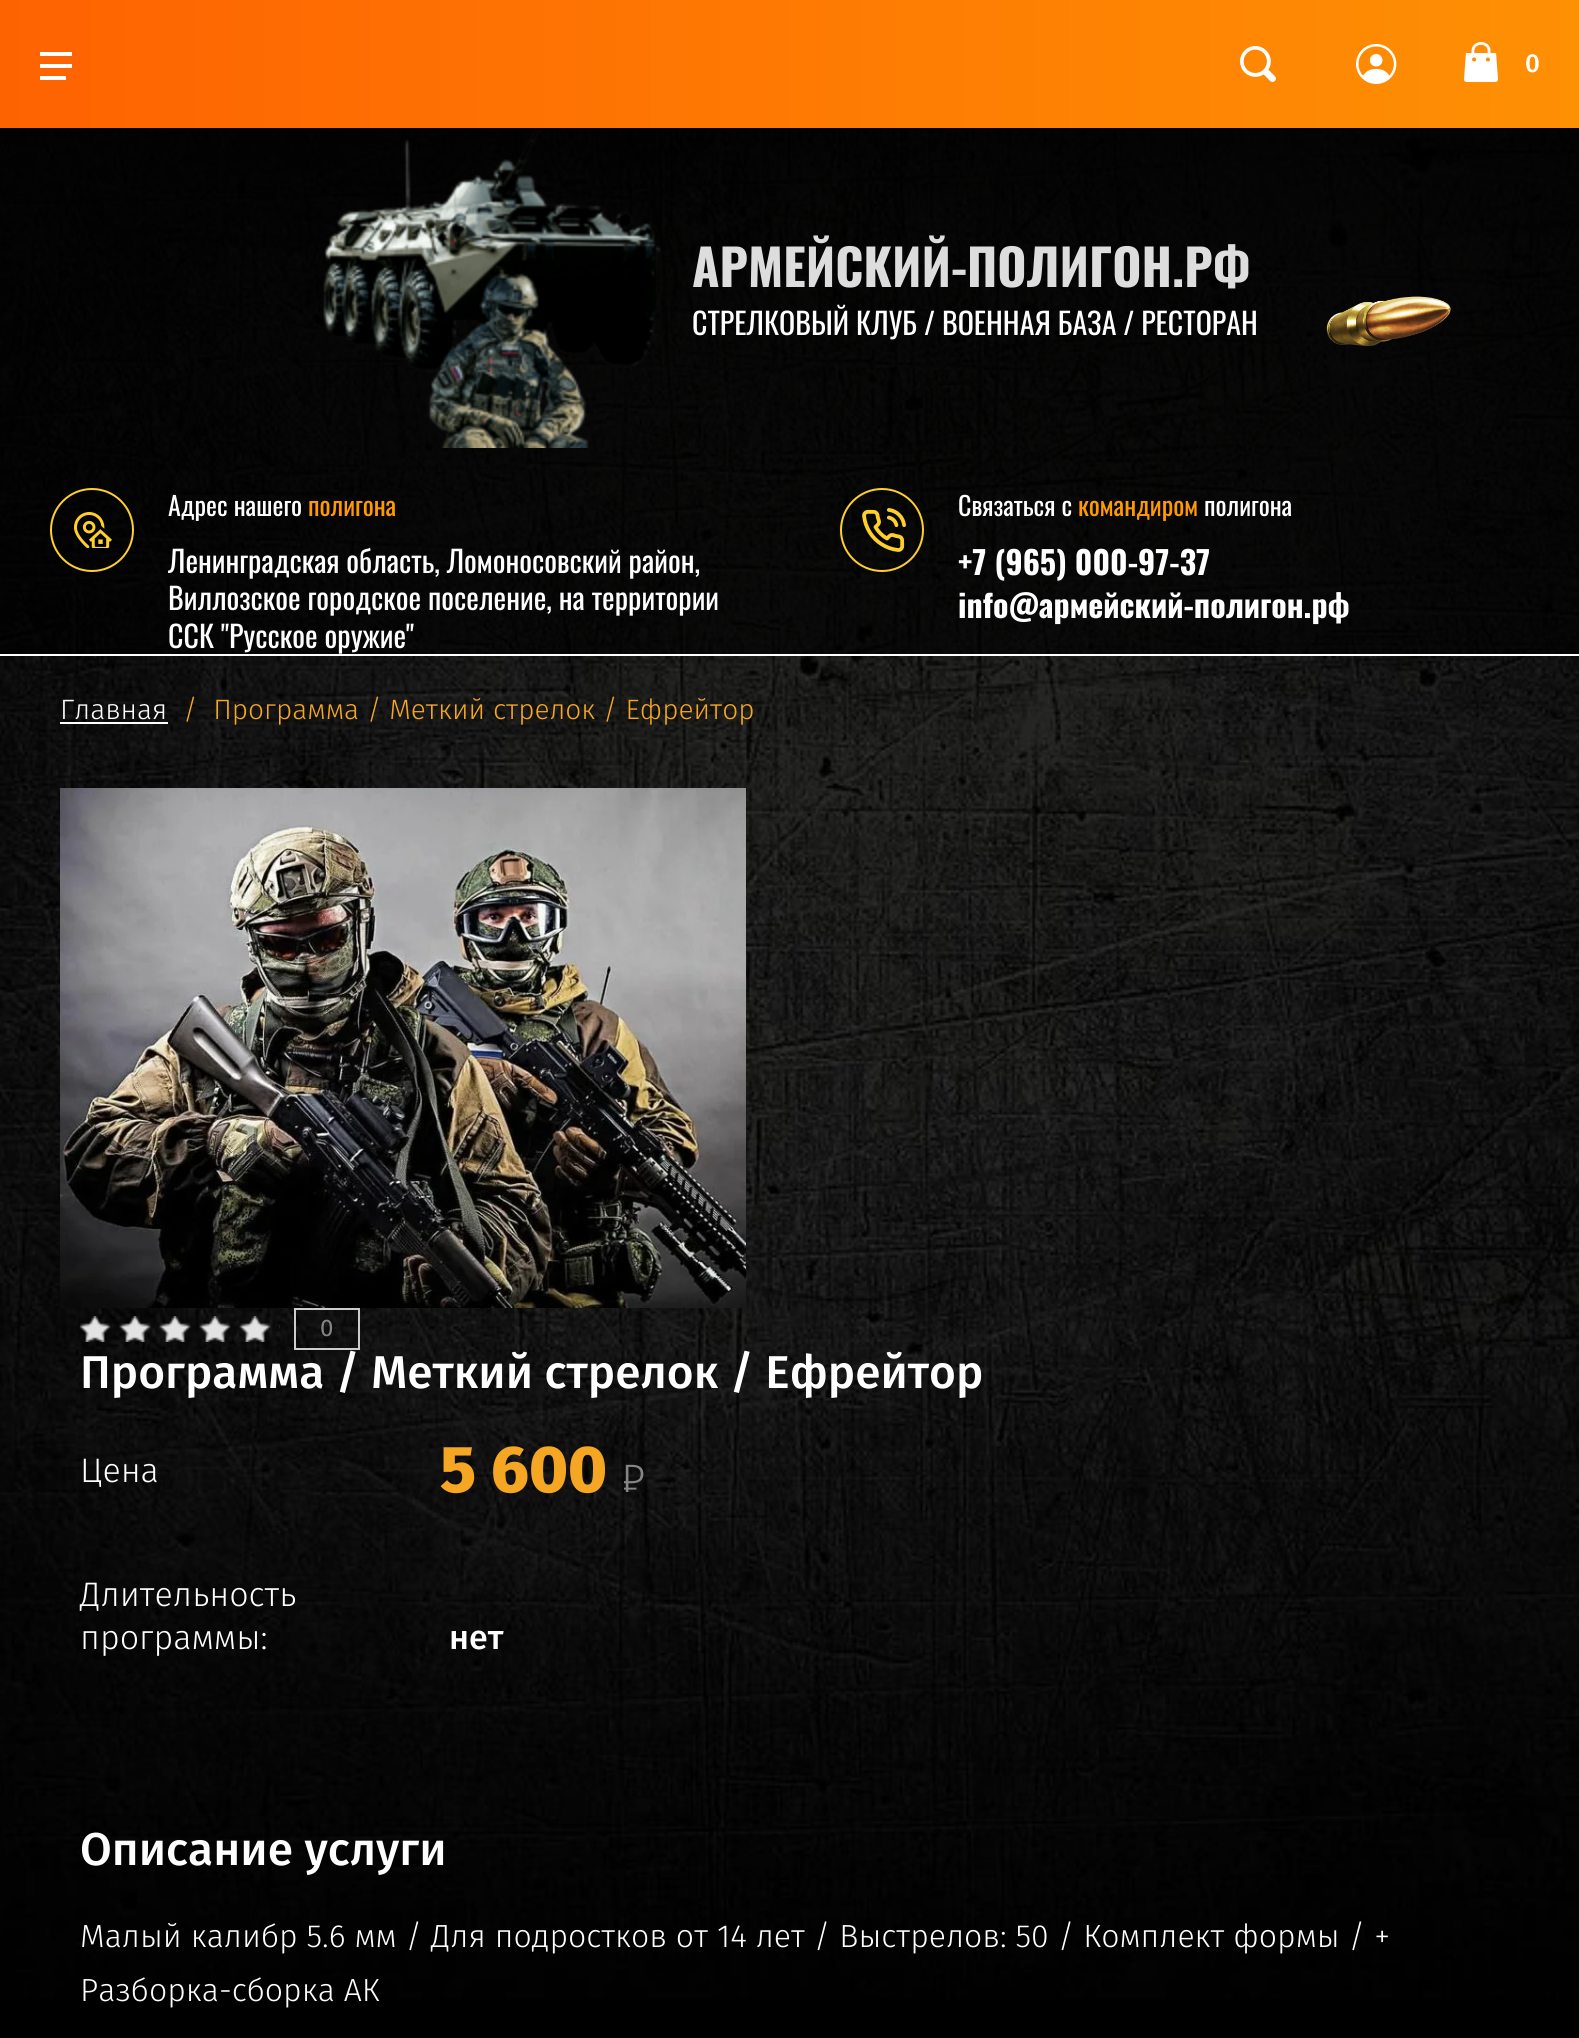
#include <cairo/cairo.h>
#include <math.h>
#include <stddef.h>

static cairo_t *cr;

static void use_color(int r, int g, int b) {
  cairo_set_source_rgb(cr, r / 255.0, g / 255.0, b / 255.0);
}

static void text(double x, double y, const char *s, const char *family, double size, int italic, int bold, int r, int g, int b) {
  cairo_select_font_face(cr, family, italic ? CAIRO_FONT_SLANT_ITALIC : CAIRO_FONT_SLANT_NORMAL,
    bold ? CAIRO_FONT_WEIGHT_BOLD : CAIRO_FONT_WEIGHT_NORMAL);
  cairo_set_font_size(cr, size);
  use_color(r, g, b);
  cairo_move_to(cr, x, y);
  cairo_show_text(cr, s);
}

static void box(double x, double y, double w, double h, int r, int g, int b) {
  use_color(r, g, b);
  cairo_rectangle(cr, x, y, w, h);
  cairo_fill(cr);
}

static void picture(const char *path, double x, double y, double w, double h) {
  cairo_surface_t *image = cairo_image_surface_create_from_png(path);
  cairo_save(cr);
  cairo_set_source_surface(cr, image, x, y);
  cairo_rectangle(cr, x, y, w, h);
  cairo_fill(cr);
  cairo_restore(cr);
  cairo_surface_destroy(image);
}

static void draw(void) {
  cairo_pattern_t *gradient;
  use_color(0, 0, 0);
  cairo_paint(cr);
  picture("img_01.png", 0, 128, 1579, 1871);
  cairo_set_source_rgba(cr, 0, 0, 0, 0.69);
  cairo_rectangle(cr, 0, 128, 1579, 526);
  cairo_fill(cr);
  gradient = cairo_pattern_create_linear(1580, 64, 0, 64);
  cairo_pattern_add_color_stop_rgba(gradient, 0, 0.996, 0.565, 0.016, 1);
  cairo_pattern_add_color_stop_rgba(gradient, 1, 0.996, 0.388, 0.008, 1);
  cairo_set_source(cr, gradient);
  cairo_pattern_destroy(gradient);
  cairo_rectangle(cr, 0, 0, 1579, 128);
  cairo_fill(cr);
  box(40, 52, 32, 4, 255, 255, 255);
  box(40, 64, 32, 4, 255, 255, 255);
  box(40, 76, 26, 4, 255, 255, 255);
  picture("img_02.png", 1240, 46, 36, 36);
  picture("img_03.png", 1356, 44, 41, 40);
  picture("img_04.png", 1464, 42, 34, 40);
  picture("img_05.png", 323, 128, 338, 320);
  picture("img_06.png", 1326, 296, 125, 50);
  picture("img_07.png", 74, 512, 38, 36);
  cairo_arc(cr, 92, 530, 41, 0, 2 * M_PI);
  use_color(255, 207, 43);
  cairo_stroke(cr);
  picture("img_08.png", 862, 508, 44, 44);
  cairo_arc(cr, 882, 530, 41, 0, 2 * M_PI);
  cairo_stroke(cr);
  box(0, 654, 1579, 2, 255, 255, 255);
  box(60, 722, 108, 2, 255, 255, 255);
  picture("img_09.png", 60, 788, 686, 520);
  picture("img_10.png", 80, 1316, 200, 26);
  cairo_rectangle(cr, 295, 1309, 64, 40);
  use_color(205, 205, 205);
  cairo_stroke(cr);
  picture("img_11.png", 624, 1464, 20, 28);
  text(1525, 72, "0", "Fira Sans Medium", 26, 0, 0, 255, 255, 255);
  text(692, 287, "АРМЕЙСКИЙ-ПОЛИГОН.РФ", "Oswald", 50, 0, 1, 221, 221, 221);
  text(692, 335, "СТРЕЛКОВЫЙ КЛУБ / ВОЕННАЯ БАЗА / РЕСТОРАН", "Oswald", 30, 0, 0, 255, 255, 255);
  text(168, 516, "Адрес нашего", "Oswald", 26, 0, 0, 255, 255, 255);
  text(308, 516, "полигона", "Oswald", 26, 0, 0, 255, 153, 0);
  text(168, 573, "Ленинградская область, Ломоносовский район,", "Oswald", 30, 0, 0, 255, 255, 255);
  text(168, 610, "Виллозское городское поселение, на территории", "Oswald", 30, 0, 0, 255, 255, 255);
  text(168, 648, "ССК \"Русское оружие\"", "Oswald", 30, 0, 0, 255, 255, 255);
  text(958, 516, "Связаться с", "Oswald", 26, 0, 0, 255, 255, 255);
  text(1078, 516, "командиром", "Oswald", 26, 0, 0, 255, 153, 0);
  text(1204, 516, "полигона", "Oswald", 26, 0, 0, 255, 255, 255);
  text(958, 575, "+7 (965) 000-97-37", "Oswald", 32, 0, 1, 255, 255, 255);
  text(958, 618, "info@армейский-полигон.рф", "Oswald", 32, 0, 1, 255, 255, 255);
  text(60, 719, "Главная", "Fira Sans Light", 28, 0, 0, 255, 255, 255);
  text(183, 719, "/  Программа / Меткий стрелок / Ефрейтор", "Fira Sans Light", 28, 0, 0, 245, 166, 35);
  text(320, 1336, "0", "Fira Sans", 24, 0, 0, 134, 134, 134);
  text(80, 1388, "Программа / Меткий стрелок / Ефрейтор", "Fira Sans Medium", 46, 0, 0, 255, 255, 255);
  text(80, 1482, "Цена", "Fira Sans Light", 34, 0, 0, 255, 255, 255);
  text(440, 1492, "5 600", "Fira Sans ExtraBold", 66, 0, 0, 245, 166, 35);
  text(80, 1606, "Длительность", "Fira Sans Light", 34, 0, 0, 255, 255, 255);
  text(80, 1649, "программы:", "Fira Sans Light", 34, 0, 0, 255, 255, 255);
  text(449, 1649, "нет", "Fira Sans Medium", 34, 0, 0, 255, 255, 255);
  text(80, 1865, "Описание услуги", "Fira Sans Medium", 46, 0, 0, 255, 255, 255);
  text(80, 1947, "Малый калибр 5.6 мм / Для подростков от 14 лет / Выстрелов: 50 / Комплект формы / +", "Fira Sans Light", 32, 0, 0, 255, 255, 255);
  text(80, 2001, "Разборка-сборка АК", "Fira Sans Light", 32, 0, 0, 255, 255, 255);
}

int main(void) {
  cairo_surface_t *surface = cairo_image_surface_create(CAIRO_FORMAT_RGB24, 1579, 2038);
  cr = cairo_create(surface);
  cairo_font_options_t *options = cairo_font_options_create();
  cairo_font_options_set_hint_metrics(options, CAIRO_HINT_METRICS_OFF);
  cairo_font_options_set_hint_style(options, CAIRO_HINT_STYLE_NONE);
  cairo_set_font_options(cr, options);
  cairo_set_miter_limit(cr, 4);
  draw();
  cairo_surface_write_to_png(surface, "out.png");
  cairo_font_options_destroy(options);
  cairo_destroy(cr);
  cairo_surface_destroy(surface);
  return 0;
}
